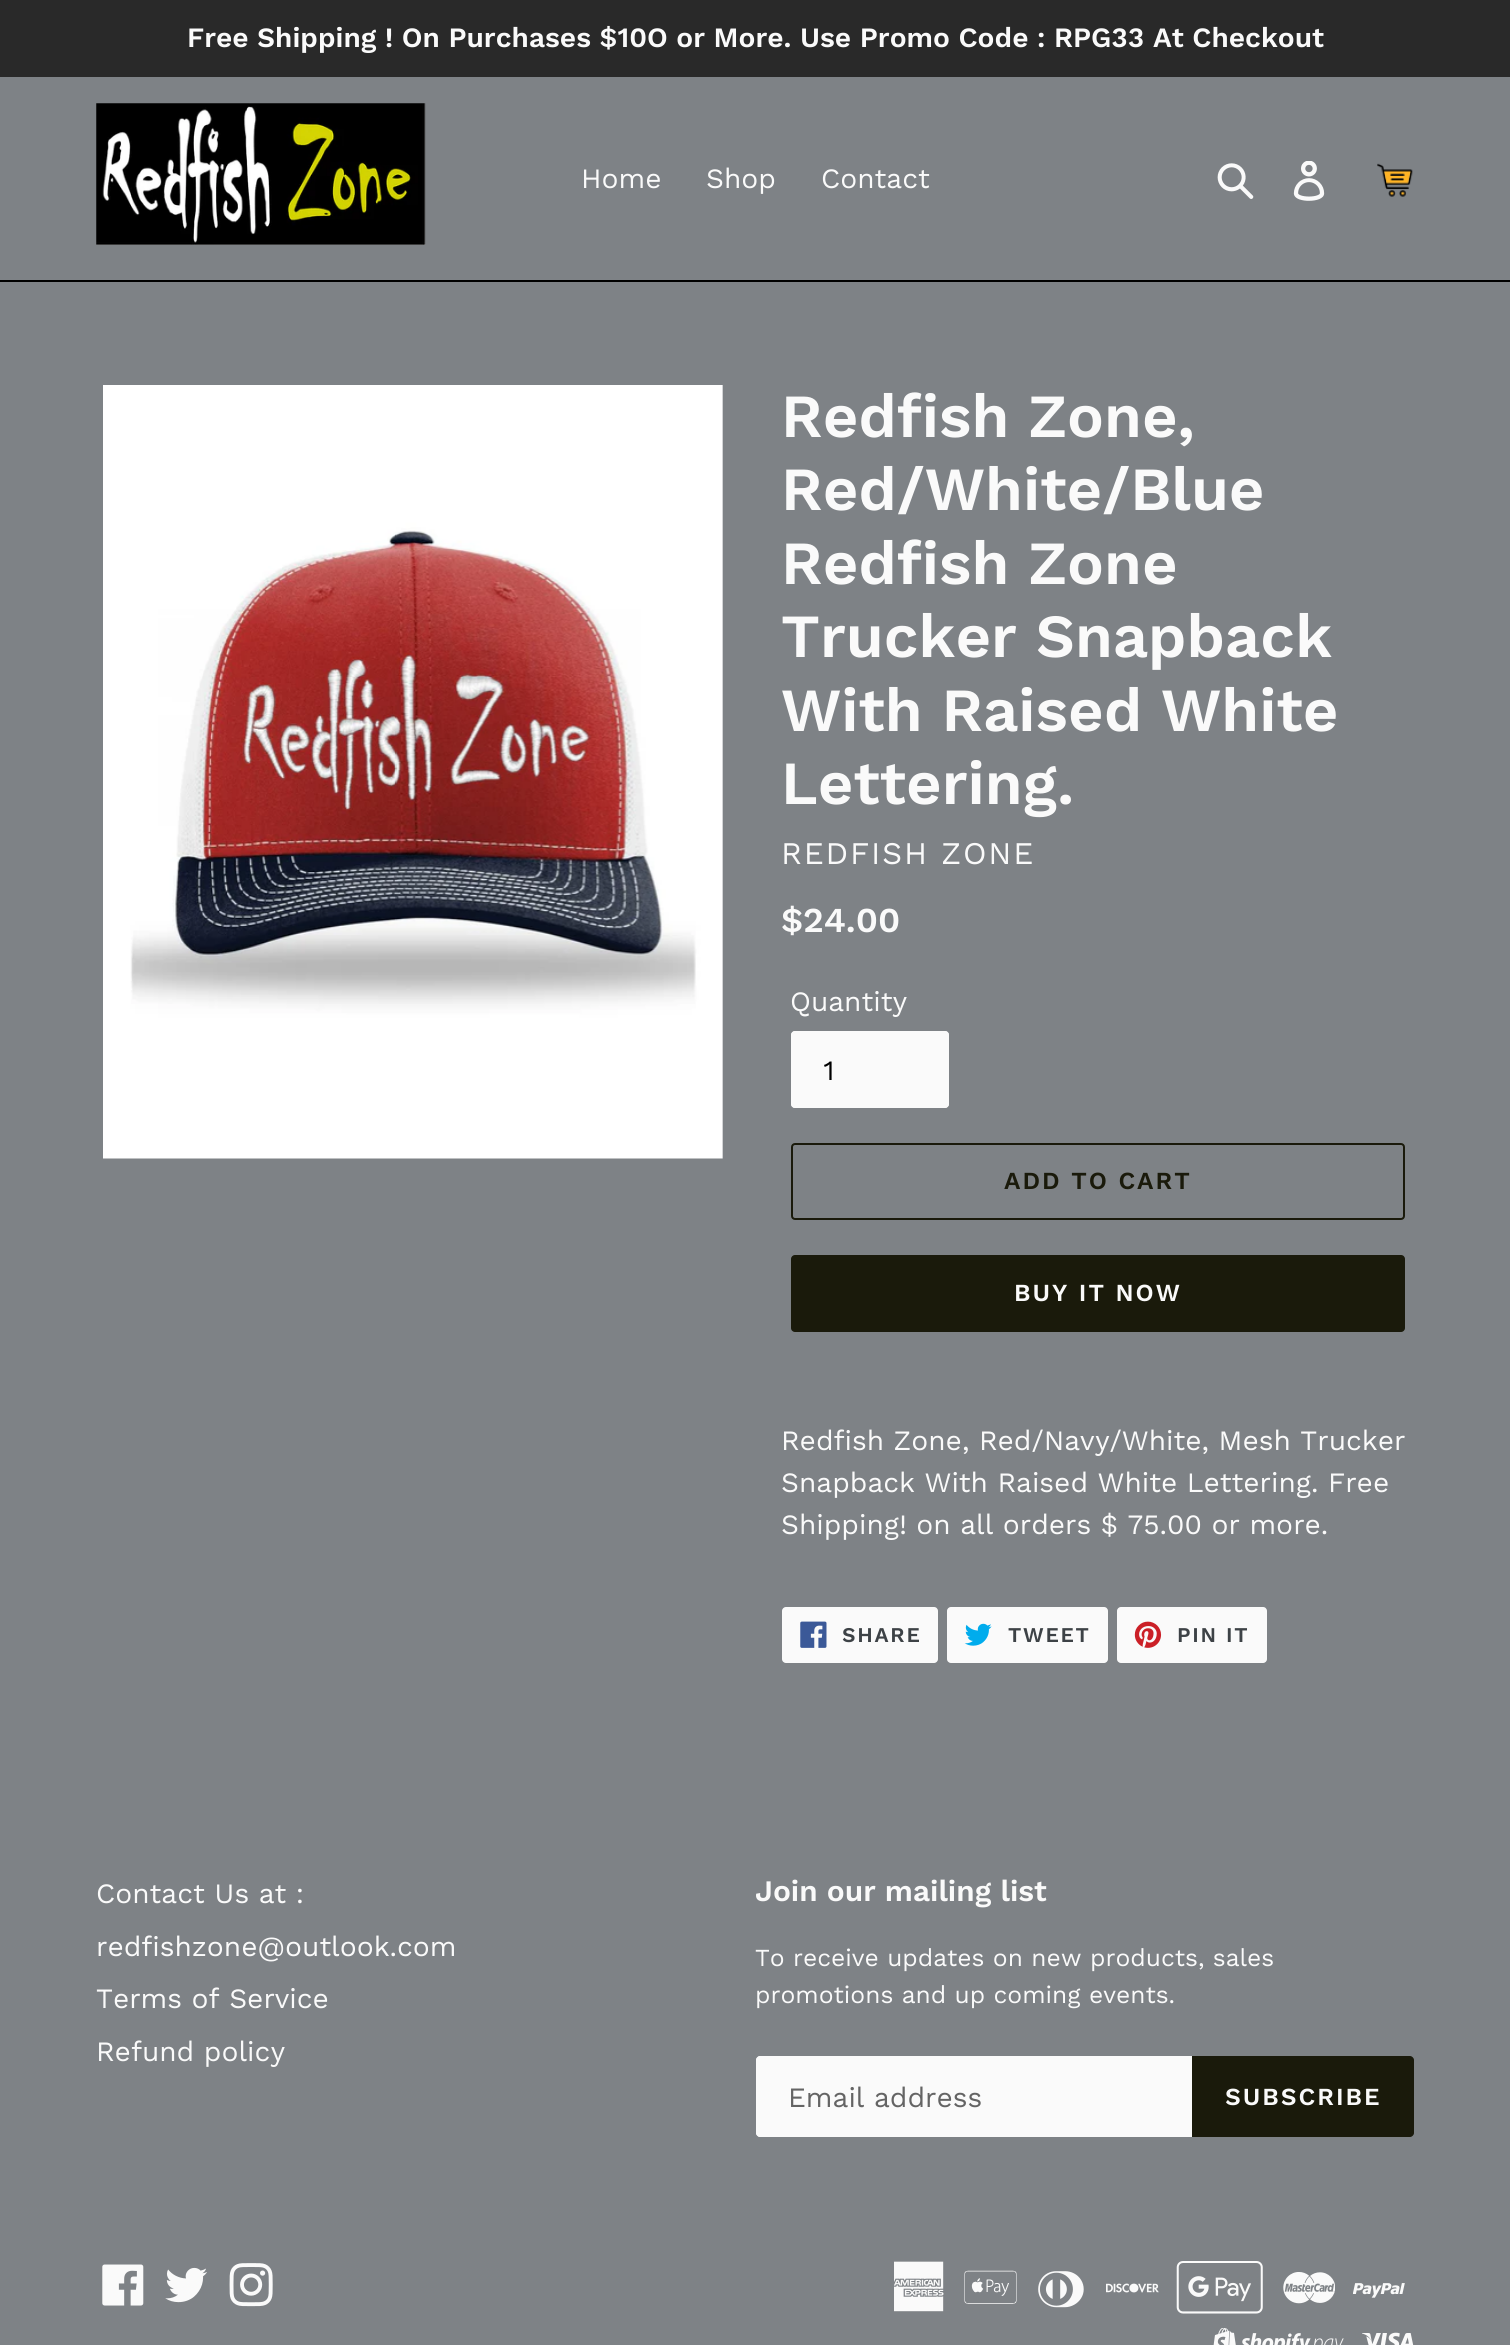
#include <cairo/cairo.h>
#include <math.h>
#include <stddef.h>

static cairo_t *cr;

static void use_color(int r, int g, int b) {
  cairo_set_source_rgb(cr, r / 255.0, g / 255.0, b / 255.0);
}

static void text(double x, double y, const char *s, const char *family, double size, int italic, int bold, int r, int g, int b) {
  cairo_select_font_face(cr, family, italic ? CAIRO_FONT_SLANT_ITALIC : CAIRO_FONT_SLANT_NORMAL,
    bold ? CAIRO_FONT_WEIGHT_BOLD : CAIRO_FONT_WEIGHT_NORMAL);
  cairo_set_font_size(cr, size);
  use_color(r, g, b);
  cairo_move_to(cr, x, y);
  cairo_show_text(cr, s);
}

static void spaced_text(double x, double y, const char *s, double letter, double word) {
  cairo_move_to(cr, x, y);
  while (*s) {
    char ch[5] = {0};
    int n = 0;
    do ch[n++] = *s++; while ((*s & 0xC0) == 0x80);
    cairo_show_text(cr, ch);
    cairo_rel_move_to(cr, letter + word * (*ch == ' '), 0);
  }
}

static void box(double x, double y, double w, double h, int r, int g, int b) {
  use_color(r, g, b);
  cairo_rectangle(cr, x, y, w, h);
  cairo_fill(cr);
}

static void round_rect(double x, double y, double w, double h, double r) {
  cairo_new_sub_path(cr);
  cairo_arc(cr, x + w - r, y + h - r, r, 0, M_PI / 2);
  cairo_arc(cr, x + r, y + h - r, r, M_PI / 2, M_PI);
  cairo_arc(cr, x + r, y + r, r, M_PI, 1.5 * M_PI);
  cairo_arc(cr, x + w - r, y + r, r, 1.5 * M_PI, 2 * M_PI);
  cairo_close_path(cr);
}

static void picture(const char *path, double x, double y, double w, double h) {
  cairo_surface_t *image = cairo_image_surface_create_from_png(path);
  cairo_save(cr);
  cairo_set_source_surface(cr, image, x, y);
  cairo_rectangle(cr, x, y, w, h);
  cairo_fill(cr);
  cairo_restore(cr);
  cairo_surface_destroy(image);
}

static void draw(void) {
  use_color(126, 130, 134);
  cairo_paint(cr);
  box(0, 0, 1510, 77, 41, 41, 41);
  box(0, 280, 1510, 2, 0, 0, 0);
  picture("img_01.png", 96, 103, 330, 142);
  picture("img_02.png", 1217, 163, 37, 36);
  picture("img_03.png", 1293, 161, 32, 40);
  picture("img_04.png", 1377, 163, 36, 34);
  picture("img_05.png", 103, 385, 620, 774);
  use_color(250, 250, 250);
  round_rect(791, 1031, 158, 77, 4);
  cairo_fill(cr);
  round_rect(792, 1032, 156, 75, 3);
  cairo_set_source_rgba(cr, 0.98, 0.98, 0.98, 0.85);
  cairo_stroke(cr);
  round_rect(792, 1144, 612, 75, 3);
  use_color(26, 26, 11);
  cairo_stroke(cr);
  round_rect(791, 1255, 614, 77, 4);
  cairo_fill(cr);
  use_color(250, 250, 250);
  round_rect(782, 1607, 156, 56, 4);
  cairo_fill(cr);
  picture("img_06.png", 800, 1621, 27, 27);
  round_rect(947, 1607, 161, 56, 4);
  cairo_fill(cr);
  picture("img_07.png", 964, 1623, 28, 23);
  round_rect(1117, 1607, 150, 56, 4);
  cairo_fill(cr);
  picture("img_08.png", 1134, 1621, 28, 27);
  cairo_new_path(cr);
  cairo_move_to(cr, 760, 2056);
  cairo_line_to(cr, 1192, 2056);
  cairo_line_to(cr, 1192, 2137);
  cairo_line_to(cr, 760, 2137);
  cairo_curve_to(cr, 758, 2137, 756, 2135, 756, 2133);
  cairo_line_to(cr, 756, 2060);
  cairo_curve_to(cr, 756, 2058, 758, 2056, 760, 2056);
  cairo_close_path(cr);
  cairo_fill(cr);
  cairo_new_path(cr);
  cairo_move_to(cr, 760, 2057);
  cairo_line_to(cr, 1191, 2057);
  cairo_line_to(cr, 1191, 2136);
  cairo_line_to(cr, 760, 2136);
  cairo_curve_to(cr, 758.5, 2136, 757, 2134.5, 757, 2133);
  cairo_line_to(cr, 757, 2060);
  cairo_curve_to(cr, 757, 2058.5, 758.5, 2057, 760, 2057);
  cairo_close_path(cr);
  cairo_set_source_rgba(cr, 0.98, 0.98, 0.98, 0.85);
  cairo_stroke(cr);
  use_color(26, 26, 11);
  cairo_new_path(cr);
  cairo_move_to(cr, 1192, 2056);
  cairo_line_to(cr, 1410, 2056);
  cairo_curve_to(cr, 1412, 2056, 1414, 2058, 1414, 2060);
  cairo_line_to(cr, 1414, 2133);
  cairo_curve_to(cr, 1414, 2135, 1412, 2137, 1410, 2137);
  cairo_line_to(cr, 1192, 2137);
  cairo_close_path(cr);
  cairo_fill(cr);
  picture("img_09.png", 102, 2264, 42, 42);
  picture("img_10.png", 165, 2267, 42, 36);
  picture("img_11.png", 229, 2263, 44, 44);
  picture("img_12.png", 894, 2261, 50, 51);
  picture("img_13.png", 964, 2270, 53, 34);
  picture("img_14.png", 1038, 2271, 46, 37);
  picture("img_15.png", 1106, 2283, 53, 10);
  picture("img_16.png", 1176, 2261, 87, 53);
  picture("img_17.png", 1283, 2272, 52, 32);
  picture("img_18.png", 1353, 2283, 52, 15);
  picture("img_19.png", 1213, 2328, 131, 17);
  picture("img_20.png", 1362, 2332, 52, 13);
  text(187, 47, "Free Shipping ! On Purchases $10O or More. Use Promo Code : RPG33 At Checkout", "Work Sans SemiBold", 28, 0, 0, 250, 250, 250);
  text(581, 188, "Home", "Work Sans", 28, 0, 0, 250, 250, 250);
  text(706, 188, "Shop", "Work Sans", 28, 0, 0, 250, 250, 250);
  text(821, 188, "Contact", "Work Sans", 28, 0, 0, 250, 250, 250);
  text(781, 437, "Redfish Zone,", "Work Sans SemiBold", 61.25, 0, 0, 250, 250, 250);
  text(781, 510, "Red/White/Blue", "Work Sans SemiBold", 61.25, 0, 0, 250, 250, 250);
  text(781, 584, "Redfish Zone", "Work Sans SemiBold", 61.25, 0, 0, 250, 250, 250);
  text(781, 657, "Trucker Snapback", "Work Sans SemiBold", 61.25, 0, 0, 250, 250, 250);
  text(781, 731, "With Raised White", "Work Sans SemiBold", 61.25, 0, 0, 250, 250, 250);
  text(781, 804, "Lettering.", "Work Sans SemiBold", 61.25, 0, 0, 250, 250, 250);
  cairo_select_font_face(cr, "Work Sans", CAIRO_FONT_SLANT_NORMAL, CAIRO_FONT_WEIGHT_NORMAL);
  cairo_set_font_size(cr, 31.5);
  spaced_text(781, 864, "REDFISH ZONE", 1.75, 0);
  text(781, 932, "$24.00", "Work Sans SemiBold", 35, 0, 0, 250, 250, 250);
  text(790, 1011, "Quantity", "Work Sans", 28, 0, 0, 250, 250, 250);
  text(823, 1080, "1", "Work Sans", 28, 0, 0, 0, 0, 0);
  cairo_select_font_face(cr, "Work Sans SemiBold", CAIRO_FONT_SLANT_NORMAL, CAIRO_FONT_WEIGHT_NORMAL);
  cairo_set_font_size(cr, 24.5);
  use_color(26, 26, 11);
  spaced_text(1004, 1189, "ADD TO CART", 2, 0);
  use_color(250, 250, 250);
  spaced_text(1014, 1301, "BUY IT NOW", 2, 0);
  text(781, 1450, "Redfish Zone, Red/Navy/White, Mesh Trucker", "Work Sans", 28, 0, 0, 250, 250, 250);
  text(781, 1492, "Snapback With Raised White Lettering. Free", "Work Sans", 28, 0, 0, 250, 250, 250);
  text(781, 1534, "Shipping! on all orders $ 75.00 or more.", "Work Sans", 28, 0, 0, 250, 250, 250);
  cairo_select_font_face(cr, "Work Sans SemiBold", CAIRO_FONT_SLANT_NORMAL, CAIRO_FONT_WEIGHT_NORMAL);
  cairo_set_font_size(cr, 21);
  use_color(61, 66, 70);
  spaced_text(842, 1642, "SHARE", 1.75, 0);
  spaced_text(1008, 1642, "TWEET", 1.75, 0);
  spaced_text(1177, 1642, "PIN IT", 1.75, 0);
  text(96, 1903, "Contact Us at :", "Work Sans", 28, 0, 0, 250, 250, 250);
  text(96, 1956, "redfishzone@outlook.com", "Work Sans", 28, 0, 0, 250, 250, 250);
  text(96, 2008, "Terms of Service", "Work Sans", 28, 0, 0, 250, 250, 250);
  text(96, 2061, "Refund policy", "Work Sans", 28, 0, 0, 250, 250, 250);
  text(755, 1901, "Join our mailing list", "Work Sans SemiBold", 29.75, 0, 0, 250, 250, 250);
  text(755, 1966, "To receive updates on new products, sales", "Work Sans", 24.5, 0, 0, 250, 250, 250);
  text(755, 2003, "promotions and up coming events.", "Work Sans", 24.5, 0, 0, 250, 250, 250);
  text(788, 2107, "Email address", "Work Sans", 28, 0, 0, 100, 100, 100);
  cairo_select_font_face(cr, "Work Sans SemiBold", CAIRO_FONT_SLANT_NORMAL, CAIRO_FONT_WEIGHT_NORMAL);
  cairo_set_font_size(cr, 24.5);
  use_color(250, 250, 250);
  spaced_text(1225, 2105, "SUBSCRIBE", 2, 0);
}

int main(void) {
  cairo_surface_t *surface = cairo_image_surface_create(CAIRO_FORMAT_RGB24, 1510, 2345);
  cr = cairo_create(surface);
  cairo_font_options_t *options = cairo_font_options_create();
  cairo_font_options_set_hint_metrics(options, CAIRO_HINT_METRICS_OFF);
  cairo_font_options_set_hint_style(options, CAIRO_HINT_STYLE_NONE);
  cairo_set_font_options(cr, options);
  cairo_set_miter_limit(cr, 4);
  draw();
  cairo_surface_write_to_png(surface, "out.png");
  cairo_font_options_destroy(options);
  cairo_destroy(cr);
  cairo_surface_destroy(surface);
  return 0;
}
